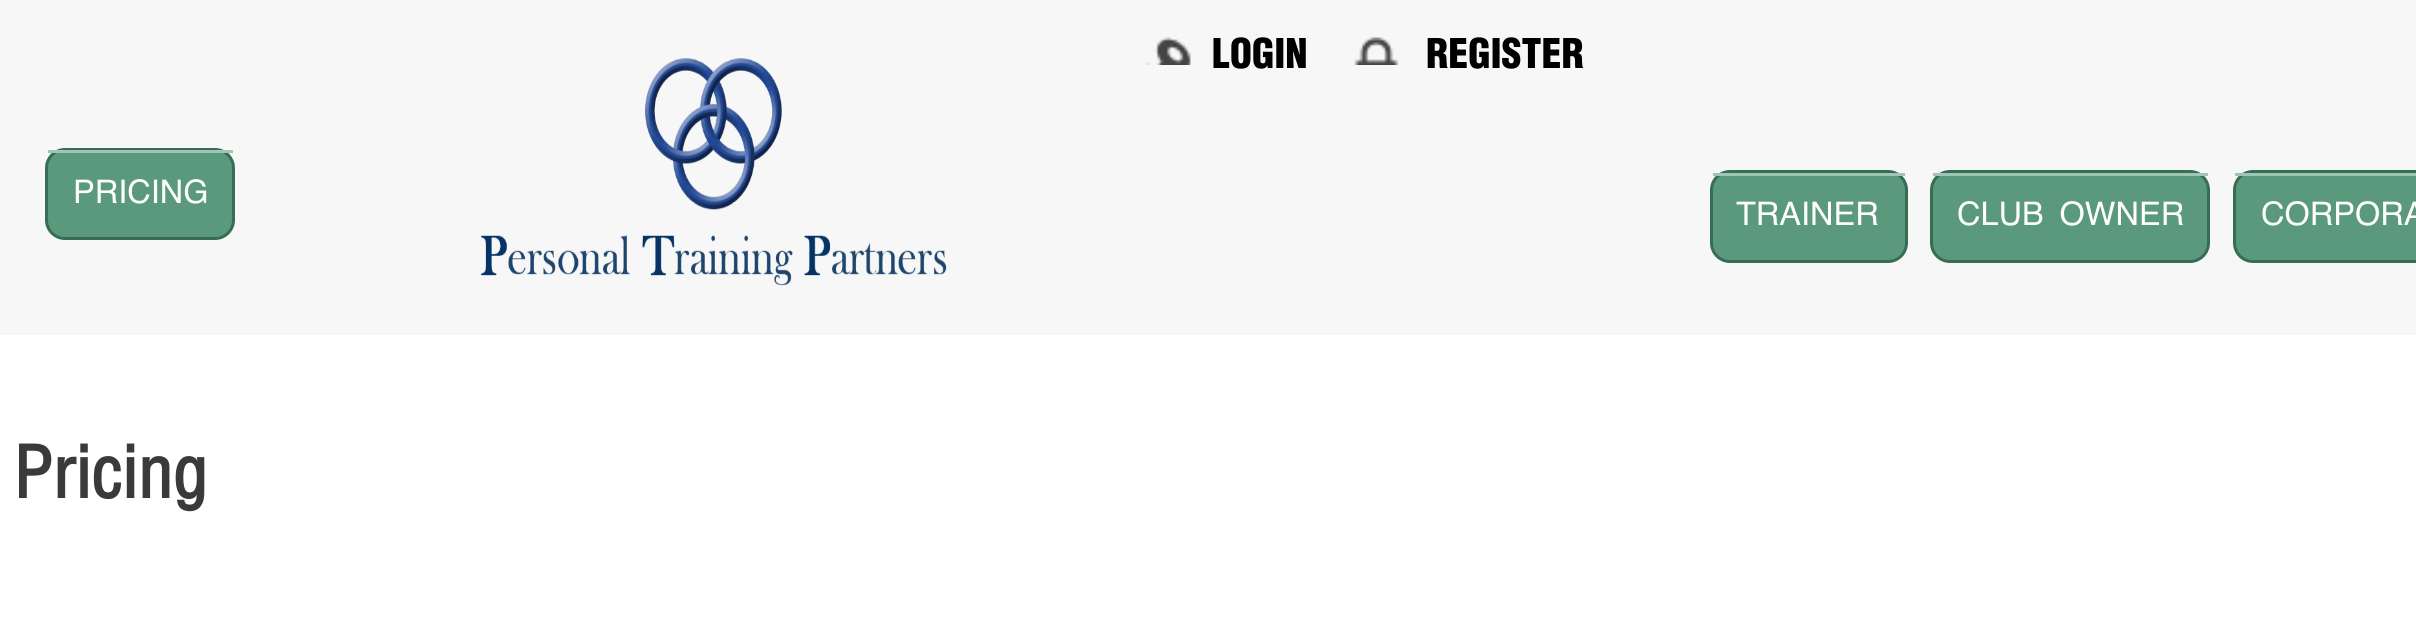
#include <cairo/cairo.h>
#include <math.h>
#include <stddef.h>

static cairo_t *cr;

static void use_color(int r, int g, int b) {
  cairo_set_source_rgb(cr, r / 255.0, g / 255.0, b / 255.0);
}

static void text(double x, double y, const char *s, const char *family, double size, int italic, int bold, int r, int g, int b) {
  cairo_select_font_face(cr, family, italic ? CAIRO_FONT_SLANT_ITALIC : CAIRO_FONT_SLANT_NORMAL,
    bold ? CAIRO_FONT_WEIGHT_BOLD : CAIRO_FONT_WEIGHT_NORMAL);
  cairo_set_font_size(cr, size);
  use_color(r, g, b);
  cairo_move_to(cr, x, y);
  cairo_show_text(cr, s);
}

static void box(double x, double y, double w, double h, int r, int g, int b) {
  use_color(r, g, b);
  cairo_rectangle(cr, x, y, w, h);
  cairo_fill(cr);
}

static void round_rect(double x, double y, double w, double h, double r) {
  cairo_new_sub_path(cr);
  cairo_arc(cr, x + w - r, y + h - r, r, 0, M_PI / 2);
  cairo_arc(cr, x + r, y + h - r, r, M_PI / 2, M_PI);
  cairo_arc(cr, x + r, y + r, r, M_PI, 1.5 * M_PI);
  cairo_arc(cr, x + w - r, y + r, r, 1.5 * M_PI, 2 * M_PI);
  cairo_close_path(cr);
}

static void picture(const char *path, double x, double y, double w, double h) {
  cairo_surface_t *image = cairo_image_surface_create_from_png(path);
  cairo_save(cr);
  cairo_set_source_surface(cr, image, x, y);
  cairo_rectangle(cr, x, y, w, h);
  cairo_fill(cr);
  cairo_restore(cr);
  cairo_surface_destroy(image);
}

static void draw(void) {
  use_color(255, 255, 255);
  cairo_paint(cr);
  box(0, 0, 2416, 335, 247, 247, 247);
  use_color(90, 153, 124);
  round_rect(46.5, 149.5, 187, 89, 18.5);
  cairo_fill_preserve(cr);
  use_color(55, 109, 84);
  cairo_set_line_width(cr, 3);
  cairo_stroke(cr);
  box(48, 150, 185, 3, 161, 197, 180);
  picture("img_01.png", 481, 58, 466, 228);
  picture("img_02.png", 1145, 37, 46, 28);
  picture("img_03.png", 1354, 37, 45, 28);
  use_color(90, 153, 124);
  round_rect(1711.5, 171.5, 195, 90, 18.5);
  cairo_fill_preserve(cr);
  use_color(55, 109, 84);
  cairo_stroke(cr);
  box(1713, 173, 192, 3, 161, 197, 180);
  use_color(90, 153, 124);
  round_rect(1931.5, 171.5, 277, 90, 18.5);
  cairo_fill_preserve(cr);
  use_color(55, 109, 84);
  cairo_stroke(cr);
  box(1933, 173, 275, 3, 161, 197, 180);
  use_color(90, 153, 124);
  round_rect(2234.5, 171.5, 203, 90, 18.5);
  cairo_fill_preserve(cr);
  use_color(55, 109, 84);
  cairo_stroke(cr);
  box(2235, 173, 181, 3, 161, 197, 180);
  text(73, 203, "PRICING", "Helvetica", 32.5, 0, 0, 255, 255, 255);
  text(1212, 68, "LOGIN", "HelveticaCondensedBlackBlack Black", 40, 0, 0, 0, 0, 0);
  text(1426, 68, "REGISTER", "HelveticaCondensedBlackBlack Black", 40, 0, 0, 0, 0, 0);
  text(1736, 225, "TRAINER", "Helvetica", 32.5, 0, 0, 255, 255, 255);
  text(1957, 225, "CLUB    OWNER", "Helvetica", 32.5, 0, 0, 255, 255, 255);
  text(2261, 225, "CORPORA", "Helvetica", 32.5, 0, 0, 255, 255, 255);
  text(13, 498, "Pricing", "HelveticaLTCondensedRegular", 70, 0, 1, 58, 58, 58);
}

int main(void) {
  cairo_surface_t *surface = cairo_image_surface_create(CAIRO_FORMAT_RGB24, 2416, 620);
  cr = cairo_create(surface);
  cairo_font_options_t *options = cairo_font_options_create();
  cairo_font_options_set_hint_metrics(options, CAIRO_HINT_METRICS_OFF);
  cairo_font_options_set_hint_style(options, CAIRO_HINT_STYLE_NONE);
  cairo_set_font_options(cr, options);
  cairo_set_miter_limit(cr, 4);
  draw();
  cairo_surface_write_to_png(surface, "out.png");
  cairo_font_options_destroy(options);
  cairo_destroy(cr);
  cairo_surface_destroy(surface);
  return 0;
}
